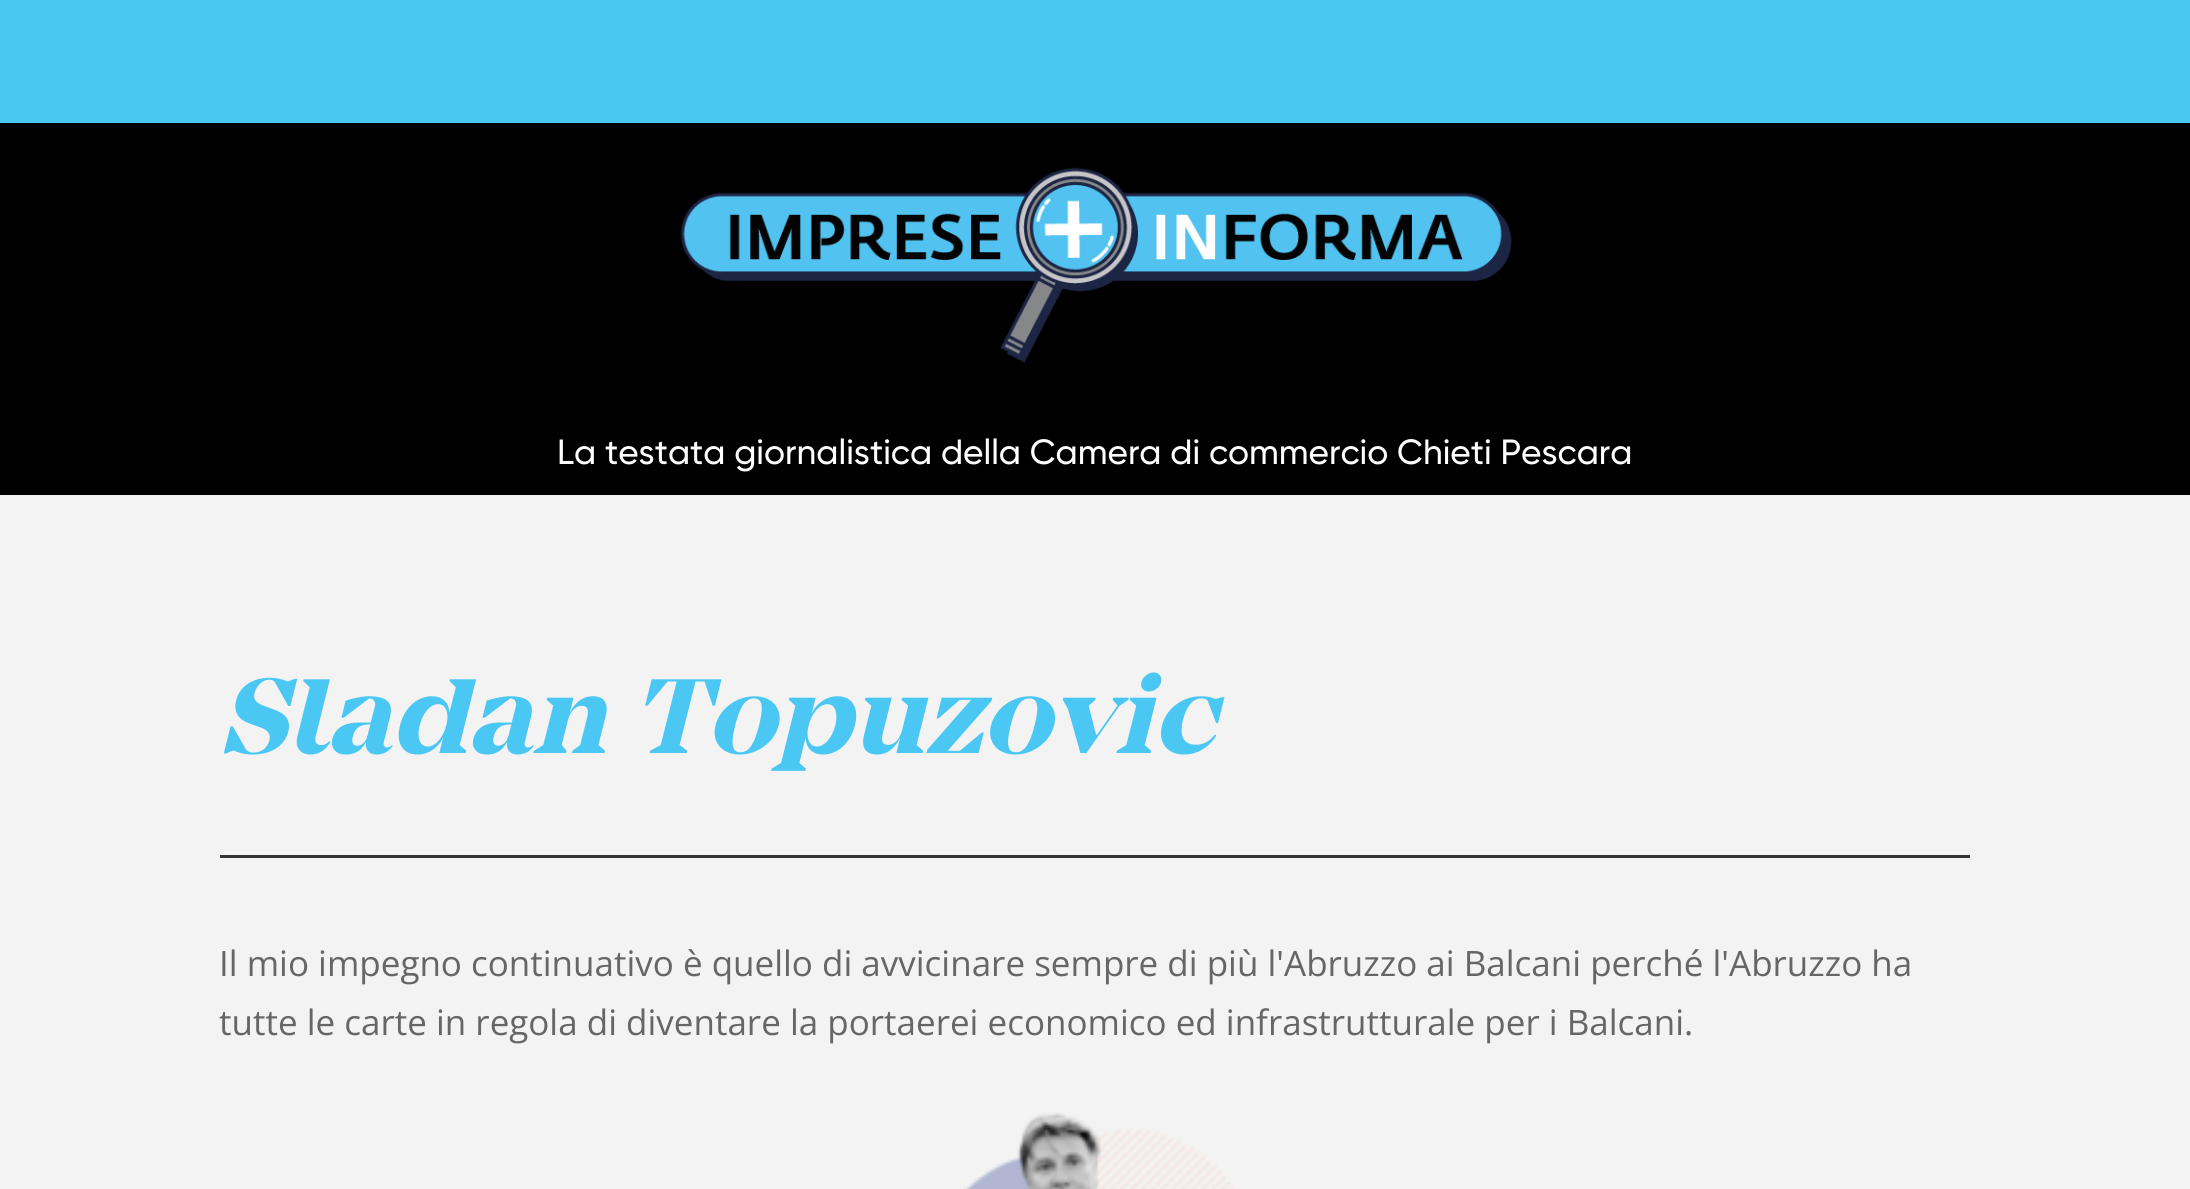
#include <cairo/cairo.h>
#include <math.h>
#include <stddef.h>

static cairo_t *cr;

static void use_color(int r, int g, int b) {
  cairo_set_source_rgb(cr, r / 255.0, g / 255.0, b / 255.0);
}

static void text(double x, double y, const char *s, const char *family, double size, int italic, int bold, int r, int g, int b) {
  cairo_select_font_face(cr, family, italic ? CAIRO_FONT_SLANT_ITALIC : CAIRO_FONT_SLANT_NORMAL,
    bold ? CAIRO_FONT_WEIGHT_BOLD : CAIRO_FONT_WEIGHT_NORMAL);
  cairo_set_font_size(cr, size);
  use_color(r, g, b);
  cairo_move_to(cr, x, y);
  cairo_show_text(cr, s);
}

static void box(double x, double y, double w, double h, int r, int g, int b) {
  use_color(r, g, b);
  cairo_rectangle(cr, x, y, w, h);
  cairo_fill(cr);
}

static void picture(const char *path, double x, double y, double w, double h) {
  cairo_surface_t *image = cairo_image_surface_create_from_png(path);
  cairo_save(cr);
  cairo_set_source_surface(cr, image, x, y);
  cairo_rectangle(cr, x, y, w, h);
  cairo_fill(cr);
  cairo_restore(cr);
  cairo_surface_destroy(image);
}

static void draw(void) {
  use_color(243, 243, 243);
  cairo_paint(cr);
  box(0, 0, 2190, 123, 75, 199, 244);
  box(0, 123, 2190, 372, 0, 0, 0);
  picture("img_01.png", 680, 167, 832, 196);
  box(220, 855, 1750, 3, 51, 51, 51);
  picture("img_02.png", 965, 1112, 270, 77);
  text(557, 464, "La testata giornalistica della Camera di commercio Chieti Pescara", "Gilroy Medium", 35, 0, 0, 255, 255, 255);
  text(219, 753, "Sladan Topuzovic", "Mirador", 110, 1, 1, 75, 199, 244);
  text(219, 976, "Il mio impegno continuativo è quello di avvicinare sempre di più l'Abruzzo ai Balcani perché l'Abruzzo ha", "Open Sans", 35, 0, 0, 102, 102, 102);
  text(219, 1035, "tutte le carte in regola di diventare la portaerei economico ed infrastrutturale per i Balcani.", "Open Sans", 35, 0, 0, 102, 102, 102);
}

int main(void) {
  cairo_surface_t *surface = cairo_image_surface_create(CAIRO_FORMAT_RGB24, 2190, 1189);
  cr = cairo_create(surface);
  cairo_font_options_t *options = cairo_font_options_create();
  cairo_font_options_set_hint_metrics(options, CAIRO_HINT_METRICS_OFF);
  cairo_font_options_set_hint_style(options, CAIRO_HINT_STYLE_NONE);
  cairo_set_font_options(cr, options);
  cairo_set_miter_limit(cr, 4);
  draw();
  cairo_surface_write_to_png(surface, "out.png");
  cairo_font_options_destroy(options);
  cairo_destroy(cr);
  cairo_surface_destroy(surface);
  return 0;
}
